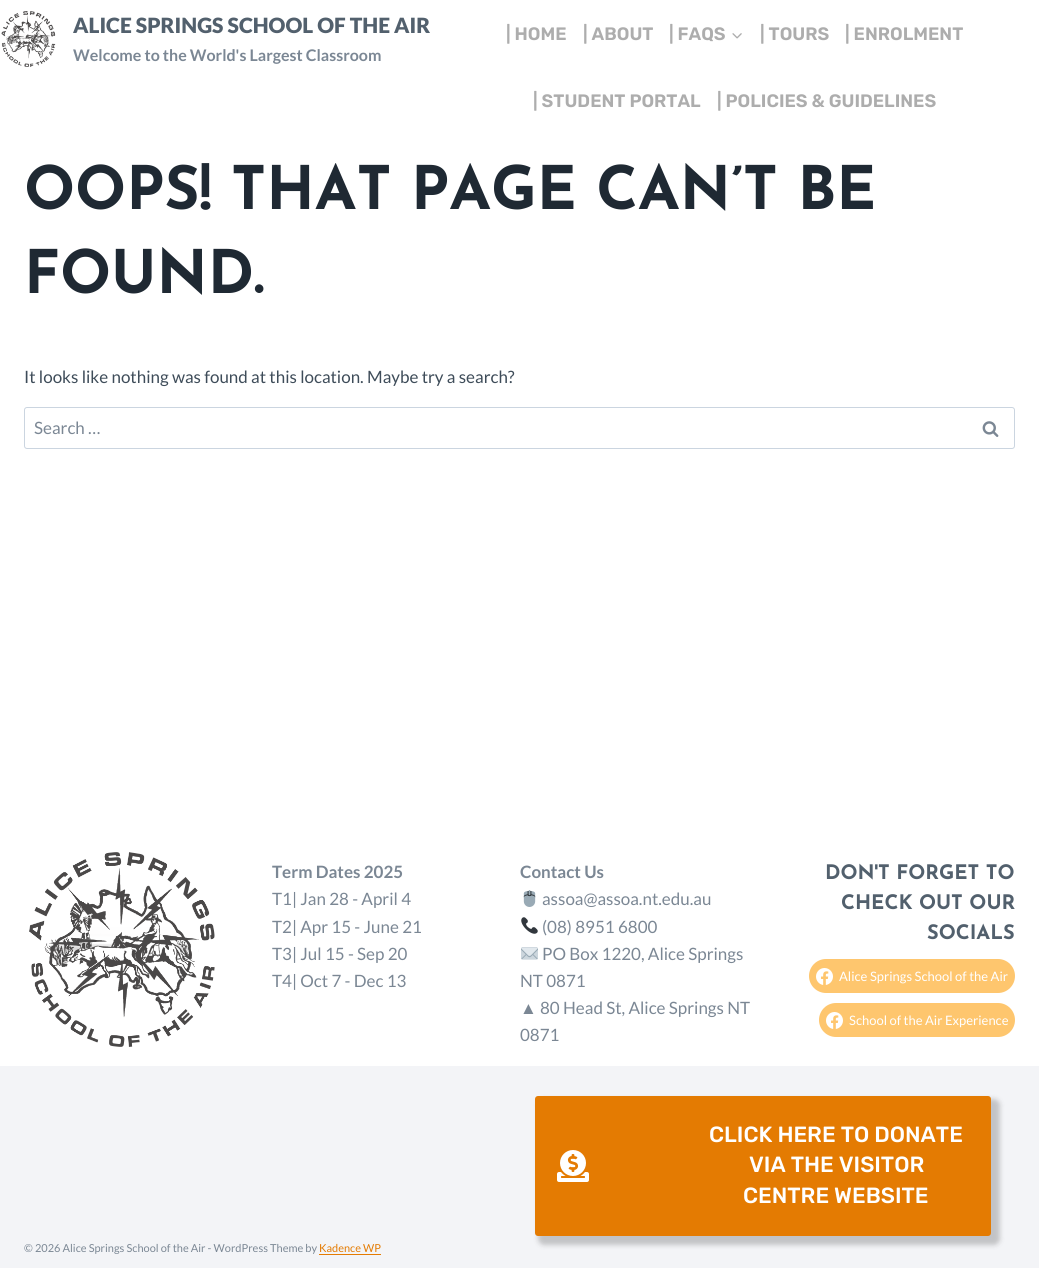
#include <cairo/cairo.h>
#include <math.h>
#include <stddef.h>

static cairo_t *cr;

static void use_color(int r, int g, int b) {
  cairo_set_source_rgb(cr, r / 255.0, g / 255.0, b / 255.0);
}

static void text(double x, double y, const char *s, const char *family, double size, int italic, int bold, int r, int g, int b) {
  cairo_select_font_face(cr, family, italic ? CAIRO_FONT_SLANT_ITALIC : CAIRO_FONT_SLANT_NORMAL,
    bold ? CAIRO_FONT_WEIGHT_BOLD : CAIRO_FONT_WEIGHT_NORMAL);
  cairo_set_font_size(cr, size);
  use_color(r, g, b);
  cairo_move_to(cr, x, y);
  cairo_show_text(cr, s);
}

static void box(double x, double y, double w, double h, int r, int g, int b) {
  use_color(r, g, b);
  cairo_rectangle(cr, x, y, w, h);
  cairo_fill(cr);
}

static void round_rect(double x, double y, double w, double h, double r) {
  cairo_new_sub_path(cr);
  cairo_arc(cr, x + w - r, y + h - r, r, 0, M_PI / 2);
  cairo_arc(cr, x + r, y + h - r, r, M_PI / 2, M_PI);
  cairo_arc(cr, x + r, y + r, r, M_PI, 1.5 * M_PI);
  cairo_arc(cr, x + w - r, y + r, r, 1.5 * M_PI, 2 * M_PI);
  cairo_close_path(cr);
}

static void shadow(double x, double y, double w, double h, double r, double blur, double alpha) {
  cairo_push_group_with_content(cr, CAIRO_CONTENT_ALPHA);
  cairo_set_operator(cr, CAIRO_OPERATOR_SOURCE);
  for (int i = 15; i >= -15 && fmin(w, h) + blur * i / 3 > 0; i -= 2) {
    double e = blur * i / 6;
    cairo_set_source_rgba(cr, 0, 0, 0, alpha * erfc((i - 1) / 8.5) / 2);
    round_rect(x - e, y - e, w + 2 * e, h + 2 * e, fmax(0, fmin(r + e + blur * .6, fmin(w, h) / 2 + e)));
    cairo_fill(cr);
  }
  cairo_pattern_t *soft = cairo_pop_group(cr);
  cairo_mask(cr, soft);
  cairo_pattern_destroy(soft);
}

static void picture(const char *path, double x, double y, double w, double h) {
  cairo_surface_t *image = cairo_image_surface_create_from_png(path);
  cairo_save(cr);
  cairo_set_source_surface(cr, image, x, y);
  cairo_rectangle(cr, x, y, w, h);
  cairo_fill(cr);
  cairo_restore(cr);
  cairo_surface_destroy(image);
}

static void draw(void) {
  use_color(255, 255, 255);
  cairo_paint(cr);
  picture("img_01.png", 1, 11, 55, 56);
  picture("img_02.png", 732, 33, 10, 6);
  round_rect(24.5, 407.5, 990, 41, 2.5);
  use_color(203, 213, 224);
  cairo_set_line_width(cr, 1);
  cairo_stroke(cr);
  picture("img_03.png", 982, 421, 17, 16);
  picture("img_04.png", 29, 852, 186, 195);
  picture("img_05.png", 523, 890, 13, 17);
  picture("img_06.png", 521, 917, 17, 17);
  picture("img_07.png", 521, 947, 17, 13);
  use_color(254, 198, 110);
  round_rect(809, 959, 206, 34, 17);
  cairo_fill(cr);
  picture("img_08.png", 816, 968, 17, 17);
  round_rect(819, 1003, 196, 34, 17);
  cairo_fill(cr);
  picture("img_08.png", 826, 1012, 17, 17);
  box(0, 1066, 1039, 202, 243, 244, 247);
  use_color(0, 0, 0);
  shadow(538, 1099, 462, 146, 6, 2.5, 0.2);
  use_color(228, 123, 2);
  round_rect(535, 1096, 456, 140, 3);
  cairo_fill(cr);
  picture("img_09.png", 557, 1150, 32, 32);
  box(319, 1254, 62, 1, 228, 123, 2);
  text(73, 33, "ALICE SPRINGS SCHOOL OF THE AIR", "Lato Black", 21, 0, 0, 82, 96, 109);
  text(73, 61, "Welcome to the World's Largest Classroom", "Lato", 16, 0, 1, 123, 135, 148);
  text(506, 40, "| HOME", "Rubik SemiBold", 18, 0, 0, 173, 173, 173);
  text(583, 40, "| ABOUT", "Rubik SemiBold", 18, 0, 0, 173, 173, 173);
  text(669, 40, "| FAQS", "Rubik SemiBold", 18, 0, 0, 173, 173, 173);
  text(760, 40, "| TOURS", "Rubik SemiBold", 18, 0, 0, 173, 173, 173);
  text(845, 40, "| ENROLMENT", "Rubik SemiBold", 18, 0, 0, 173, 173, 173);
  text(533, 107, "| STUDENT PORTAL", "Rubik SemiBold", 18, 0, 0, 173, 173, 173);
  text(717, 107, "| POLICIES & GUIDELINES", "Rubik SemiBold", 18, 0, 0, 173, 173, 173);
  text(24, 209, "OOPS! THAT PAGE CAN’T BE", "Josefin Sans Thin", 60, 0, 0, 31, 41, 51);
  text(24, 293, "FOUND.", "Josefin Sans Thin", 60, 0, 0, 31, 41, 51);
  text(24, 383, "It looks like nothing was found at this location. Maybe try a search?", "Lato", 17, 0, 0, 62, 76, 89);
  text(34, 434, "Search …", "Lato", 17, 0, 0, 123, 135, 148);
  text(272, 878, "Term Dates 2025", "Lato", 17, 0, 1, 123, 135, 148);
  text(272, 905, "T1| Jan 28 - April 4", "Lato", 17, 0, 0, 123, 135, 148);
  text(272, 933, "T2| Apr 15 - June 21", "Lato", 17, 0, 0, 123, 135, 148);
  text(272, 960, "T3| Jul 15 - Sep 20", "Lato", 17, 0, 0, 123, 135, 148);
  text(272, 987, "T4| Oct 7 - Dec 13", "Lato", 17, 0, 0, 123, 135, 148);
  text(520, 878, "Contact Us", "Lato", 17, 0, 1, 123, 135, 148);
  text(542, 905, "assoa@assoa.nt.edu.au", "Lato", 17, 0, 0, 123, 135, 148);
  text(542, 933, "(08) 8951 6800", "Lato", 17, 0, 0, 123, 135, 148);
  text(542, 960, "PO Box 1220, Alice Springs", "Lato", 17, 0, 0, 123, 135, 148);
  text(520, 987, "NT 0871", "Lato", 17, 0, 0, 123, 135, 148);
  text(520, 1014, "▲", "Liberation Sans", 17, 0, 0, 123, 135, 148);
  text(540, 1014, "80 Head St, Alice Springs NT", "Lato", 17, 0, 0, 123, 135, 148);
  text(520, 1041, "0871", "Lato", 17, 0, 0, 123, 135, 148);
  text(825, 879, "DON'T FORGET TO", "Josefin Sans Thin", 20, 0, 0, 82, 96, 109);
  text(841, 909, "CHECK OUT OUR", "Josefin Sans Thin", 20, 0, 0, 82, 96, 109);
  text(927, 939, "SOCIALS", "Josefin Sans Thin", 20, 0, 0, 82, 96, 109);
  text(839, 981, "Alice Springs School of the Air", "Lato", 13, 0, 0, 255, 255, 255);
  text(849, 1025, "School of the Air Experience", "Lato", 13, 0, 0, 255, 255, 255);
  text(709, 1142, "CLICK HERE TO DONATE", "Rubik Medium", 22, 0, 0, 255, 255, 255);
  text(749, 1172, "VIA THE VISITOR", "Rubik Medium", 22, 0, 0, 255, 255, 255);
  text(743, 1203, "CENTRE WEBSITE", "Rubik Medium", 22, 0, 0, 255, 255, 255);
  text(24, 1252, "© 2026 Alice Springs School of the Air - WordPress Theme by", "Lato", 11, 0, 0, 123, 135, 148);
  text(319, 1252, "Kadence WP", "Lato", 11, 0, 0, 228, 123, 2);
}

int main(void) {
  cairo_surface_t *surface = cairo_image_surface_create(CAIRO_FORMAT_RGB24, 1039, 1268);
  cr = cairo_create(surface);
  cairo_font_options_t *options = cairo_font_options_create();
  cairo_font_options_set_hint_metrics(options, CAIRO_HINT_METRICS_OFF);
  cairo_font_options_set_hint_style(options, CAIRO_HINT_STYLE_NONE);
  cairo_set_font_options(cr, options);
  cairo_set_miter_limit(cr, 4);
  draw();
  cairo_surface_write_to_png(surface, "out.png");
  cairo_font_options_destroy(options);
  cairo_destroy(cr);
  cairo_surface_destroy(surface);
  return 0;
}
